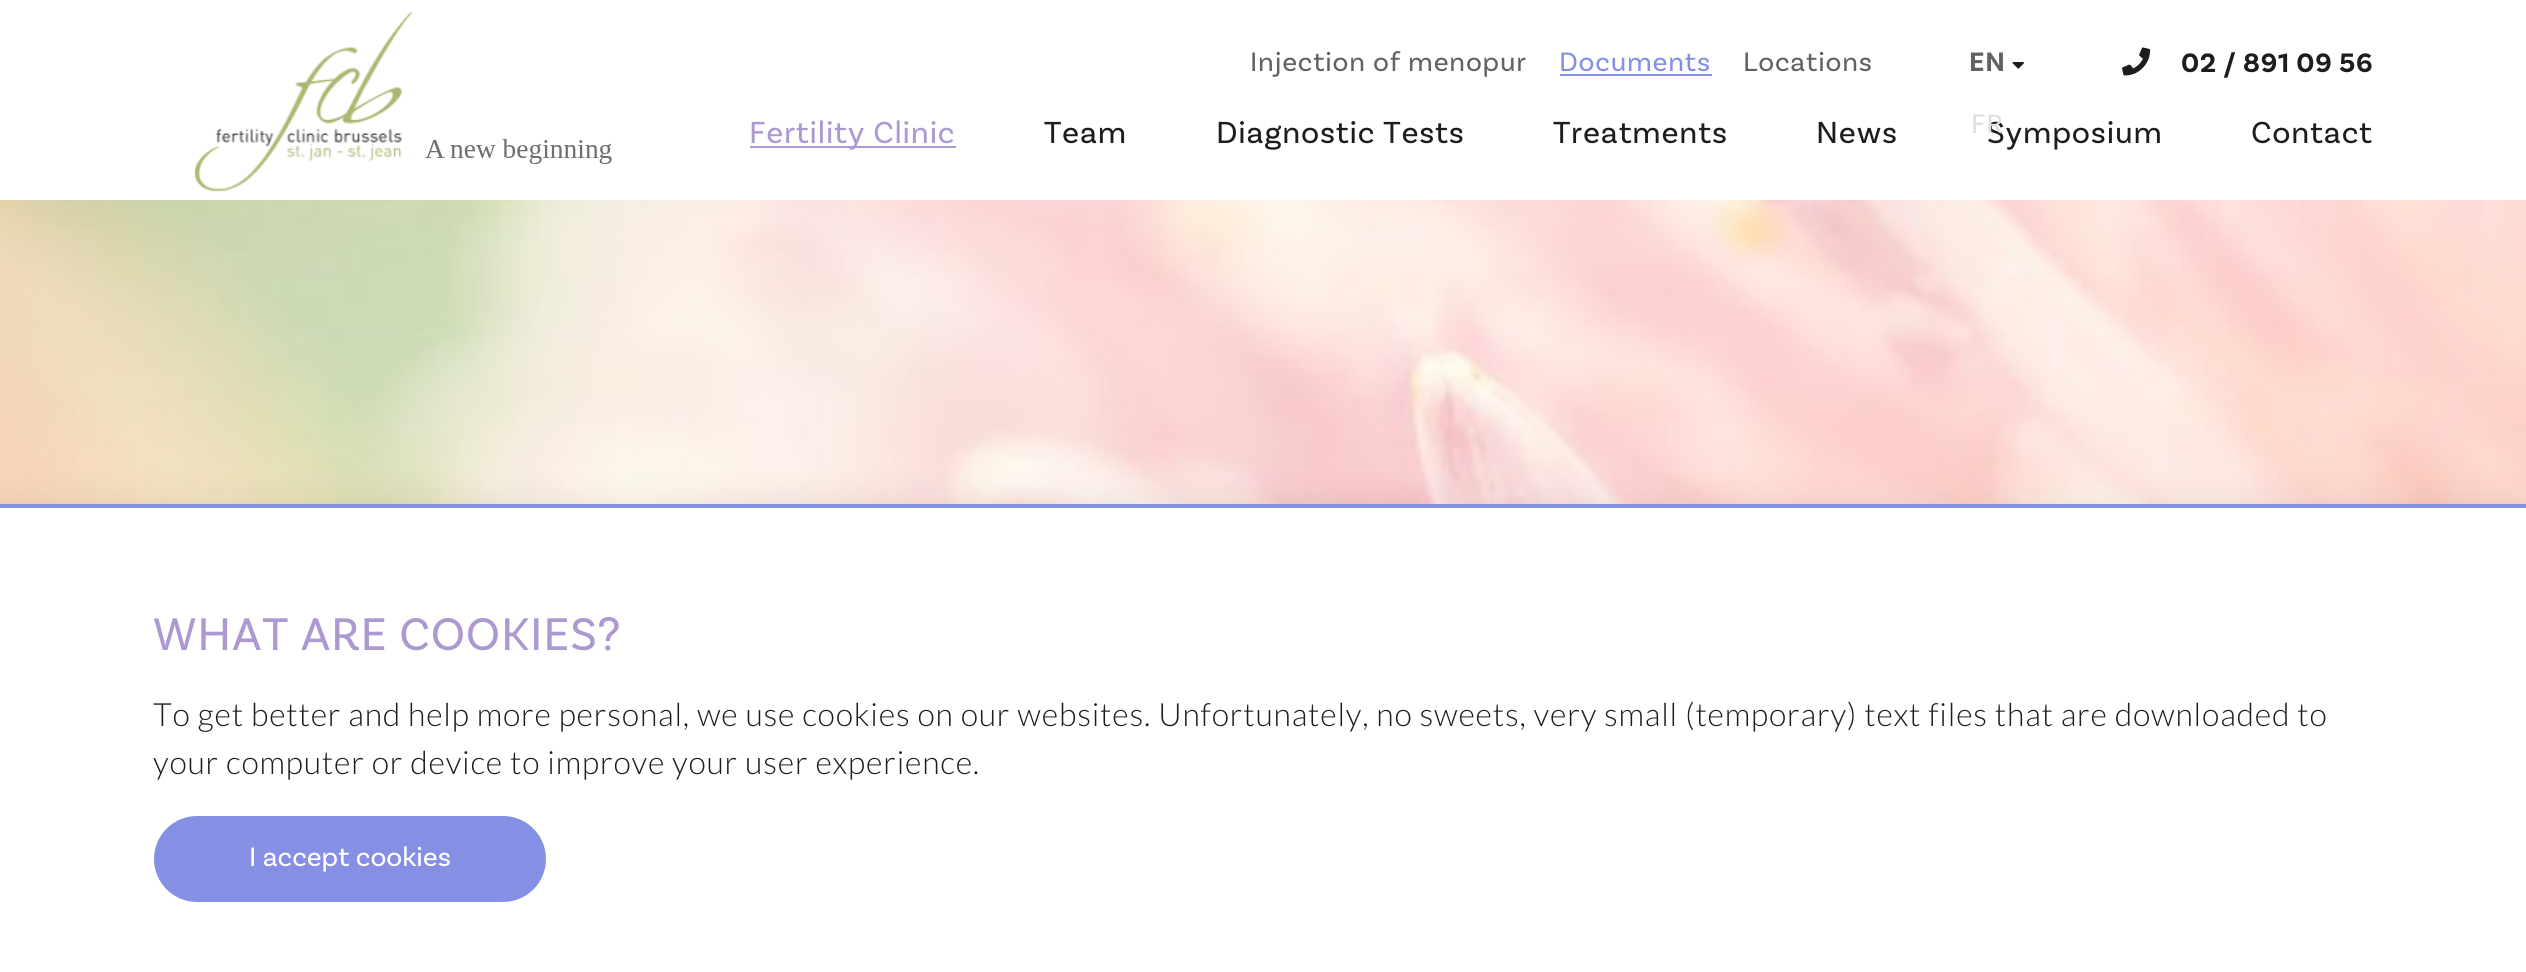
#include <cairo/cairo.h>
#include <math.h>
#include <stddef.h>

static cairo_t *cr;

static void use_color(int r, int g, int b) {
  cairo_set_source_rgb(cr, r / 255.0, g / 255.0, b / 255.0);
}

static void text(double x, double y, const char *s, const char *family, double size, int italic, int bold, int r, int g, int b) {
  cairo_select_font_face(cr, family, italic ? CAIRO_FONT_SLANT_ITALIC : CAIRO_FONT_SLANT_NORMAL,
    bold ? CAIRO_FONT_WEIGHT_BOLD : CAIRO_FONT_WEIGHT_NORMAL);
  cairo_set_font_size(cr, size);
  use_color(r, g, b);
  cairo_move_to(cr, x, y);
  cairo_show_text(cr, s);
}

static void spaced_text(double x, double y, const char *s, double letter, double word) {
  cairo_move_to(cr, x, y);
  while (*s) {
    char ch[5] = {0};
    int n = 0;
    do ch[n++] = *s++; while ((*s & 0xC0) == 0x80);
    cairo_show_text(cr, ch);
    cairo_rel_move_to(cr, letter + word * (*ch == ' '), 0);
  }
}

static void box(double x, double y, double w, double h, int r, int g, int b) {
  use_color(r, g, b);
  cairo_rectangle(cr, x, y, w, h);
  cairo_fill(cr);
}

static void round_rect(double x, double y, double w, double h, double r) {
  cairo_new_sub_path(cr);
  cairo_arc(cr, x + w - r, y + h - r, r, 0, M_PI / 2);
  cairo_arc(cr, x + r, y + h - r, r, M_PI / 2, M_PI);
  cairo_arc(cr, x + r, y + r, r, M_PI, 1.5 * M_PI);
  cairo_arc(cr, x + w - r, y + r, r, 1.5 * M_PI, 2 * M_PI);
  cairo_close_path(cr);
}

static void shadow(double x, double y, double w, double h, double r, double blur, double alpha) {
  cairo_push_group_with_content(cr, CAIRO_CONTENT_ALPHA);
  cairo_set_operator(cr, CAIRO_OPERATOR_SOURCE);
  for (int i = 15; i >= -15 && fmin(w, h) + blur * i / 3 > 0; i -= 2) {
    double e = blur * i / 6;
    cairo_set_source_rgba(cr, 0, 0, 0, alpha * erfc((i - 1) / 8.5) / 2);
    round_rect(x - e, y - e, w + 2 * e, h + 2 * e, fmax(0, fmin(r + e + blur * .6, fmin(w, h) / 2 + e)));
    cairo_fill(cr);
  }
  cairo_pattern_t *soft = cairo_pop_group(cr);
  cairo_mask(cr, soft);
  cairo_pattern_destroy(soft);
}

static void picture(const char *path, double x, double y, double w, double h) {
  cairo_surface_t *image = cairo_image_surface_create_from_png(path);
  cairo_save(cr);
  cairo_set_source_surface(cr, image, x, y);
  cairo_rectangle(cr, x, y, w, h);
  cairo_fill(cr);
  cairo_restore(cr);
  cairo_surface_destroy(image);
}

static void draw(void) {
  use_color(255, 255, 255);
  cairo_paint(cr);
  picture("img_01.png", 194, 11, 418, 181);
  box(1560, 74, 152, 2, 133, 144, 229);
  picture("img_02.png", 2012, 62, 12, 7);
  picture("img_03.png", 2122, 47, 29, 29);
  box(750, 146, 206, 2, 172, 153, 209);
  picture("img_04.png", 0, 200, 2526, 304);
  use_color(0, 0, 0);
  shadow(0, 510, 2526, 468, 0, 20, 0.1);
  box(0, 508, 2526, 464, 255, 255, 255);
  box(0, 504, 2526, 4, 133, 144, 229);
  round_rect(154, 816, 392, 86, 43);
  cairo_fill(cr);
  cairo_select_font_face(cr, "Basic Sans", CAIRO_FONT_SLANT_NORMAL, CAIRO_FONT_WEIGHT_NORMAL);
  cairo_set_font_size(cr, 28);
  use_color(98, 98, 97);
  spaced_text(1250, 71, "Injection of menopur", 0.8, 0);
  use_color(133, 144, 229);
  spaced_text(1559, 71, "Documents", 0.8, 0);
  use_color(98, 98, 97);
  spaced_text(1743, 71, "Locations", 0.8, 0);
  cairo_select_font_face(cr, "Basic Sans", CAIRO_FONT_SLANT_NORMAL, CAIRO_FONT_WEIGHT_BOLD);
  spaced_text(1969, 71, "EN", 0.8, 0);
  use_color(29, 29, 27);
  spaced_text(2181, 72, "02 / 891 09 56", 0.8, 0);
  cairo_select_font_face(cr, "Basic Sans", CAIRO_FONT_SLANT_NORMAL, CAIRO_FONT_WEIGHT_NORMAL);
  cairo_set_font_size(cr, 32);
  use_color(172, 153, 209);
  spaced_text(749, 143, "Fertility Clinic", 0.8, 0);
  use_color(29, 29, 27);
  spaced_text(1044, 143, "Team", 0.8, 0);
  spaced_text(1216, 143, "Diagnostic Tests", 0.8, 0);
  spaced_text(1553, 143, "Treatments", 0.8, 0);
  spaced_text(1816, 143, "News", 0.8, 0);
  spaced_text(1987, 143, "Symposium", 0.8, 0);
  cairo_set_font_size(cr, 28);
  use_color(222, 222, 222);
  spaced_text(1971, 133, "FR", 0.8, 0);
  cairo_set_font_size(cr, 32);
  use_color(29, 29, 27);
  spaced_text(2251, 143, "Contact", 0.8, 0);
  cairo_set_font_size(cr, 48);
  use_color(172, 153, 209);
  spaced_text(153, 650, "WHAT ARE COOKIES?", 0.8, 0);
  cairo_select_font_face(cr, "Lato Light", CAIRO_FONT_SLANT_NORMAL, CAIRO_FONT_WEIGHT_NORMAL);
  cairo_set_font_size(cr, 32);
  use_color(29, 29, 27);
  spaced_text(153, 726, "To get better and help more personal, we use cookies on our websites. Unfortunately, no sweets, very small (temporary) text files that are downloaded to", 0.8, 0);
  spaced_text(153, 774, "your computer or device to improve your user experience.", 0.8, 0);
  text(249, 866, "I accept cookies", "Basic Sans", 28, 0, 0, 255, 255, 255);
}

int main(void) {
  cairo_surface_t *surface = cairo_image_surface_create(CAIRO_FORMAT_RGB24, 2526, 972);
  cr = cairo_create(surface);
  cairo_font_options_t *options = cairo_font_options_create();
  cairo_font_options_set_hint_metrics(options, CAIRO_HINT_METRICS_OFF);
  cairo_font_options_set_hint_style(options, CAIRO_HINT_STYLE_NONE);
  cairo_set_font_options(cr, options);
  cairo_set_miter_limit(cr, 4);
  draw();
  cairo_surface_write_to_png(surface, "out.png");
  cairo_font_options_destroy(options);
  cairo_destroy(cr);
  cairo_surface_destroy(surface);
  return 0;
}
